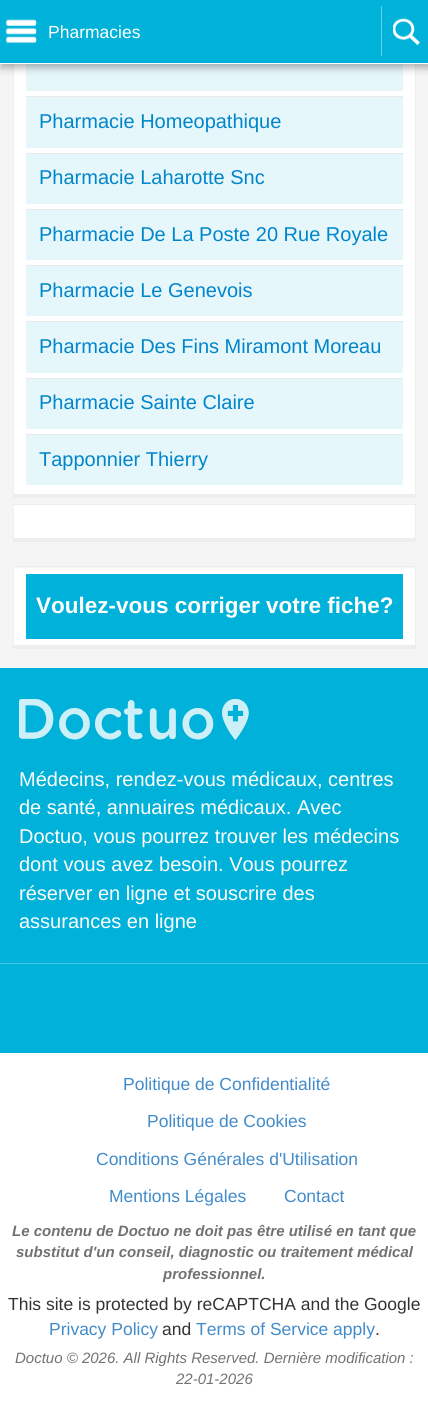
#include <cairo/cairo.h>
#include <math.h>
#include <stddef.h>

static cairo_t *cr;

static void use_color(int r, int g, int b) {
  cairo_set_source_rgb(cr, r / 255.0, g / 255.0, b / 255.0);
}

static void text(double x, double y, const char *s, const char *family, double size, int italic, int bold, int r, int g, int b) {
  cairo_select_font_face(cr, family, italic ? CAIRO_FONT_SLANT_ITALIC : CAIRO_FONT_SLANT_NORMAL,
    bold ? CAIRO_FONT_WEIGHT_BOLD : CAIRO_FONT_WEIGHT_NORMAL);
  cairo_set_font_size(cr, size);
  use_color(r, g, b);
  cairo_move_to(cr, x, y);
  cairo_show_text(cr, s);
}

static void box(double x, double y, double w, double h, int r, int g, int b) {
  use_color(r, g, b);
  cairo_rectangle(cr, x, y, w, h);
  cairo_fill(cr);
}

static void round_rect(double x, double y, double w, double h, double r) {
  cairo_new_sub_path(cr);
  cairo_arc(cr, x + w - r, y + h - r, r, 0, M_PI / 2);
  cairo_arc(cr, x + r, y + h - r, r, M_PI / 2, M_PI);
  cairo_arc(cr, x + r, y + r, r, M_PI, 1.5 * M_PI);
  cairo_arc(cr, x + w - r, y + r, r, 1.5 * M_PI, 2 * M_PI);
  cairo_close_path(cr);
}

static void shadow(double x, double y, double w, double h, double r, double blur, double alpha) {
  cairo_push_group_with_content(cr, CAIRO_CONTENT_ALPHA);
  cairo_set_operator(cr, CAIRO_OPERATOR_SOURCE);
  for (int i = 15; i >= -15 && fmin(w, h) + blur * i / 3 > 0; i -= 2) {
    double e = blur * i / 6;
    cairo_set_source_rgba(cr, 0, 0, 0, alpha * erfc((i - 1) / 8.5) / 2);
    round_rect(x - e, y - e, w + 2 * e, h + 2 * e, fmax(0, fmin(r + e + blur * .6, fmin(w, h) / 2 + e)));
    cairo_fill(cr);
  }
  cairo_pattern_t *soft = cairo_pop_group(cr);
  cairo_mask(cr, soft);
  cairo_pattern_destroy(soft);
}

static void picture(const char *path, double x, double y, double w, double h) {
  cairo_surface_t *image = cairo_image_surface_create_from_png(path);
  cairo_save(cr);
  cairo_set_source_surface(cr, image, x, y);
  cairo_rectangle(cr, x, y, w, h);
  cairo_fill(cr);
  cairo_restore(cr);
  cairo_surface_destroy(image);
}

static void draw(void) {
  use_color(255, 255, 255);
  cairo_paint(cr);
  box(0, 64, 428, 604, 245, 245, 245);
  box(14, 64, 401, 430, 255, 255, 255);
  box(415, 64, 1, 434, 238, 238, 238);
  box(13, 494, 403, 4, 238, 238, 238);
  box(13, 64, 1, 434, 238, 238, 238);
  box(26, 64, 377, 27, 230, 247, 251);
  use_color(40, 40, 40);
  shadow(1, 4, 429, 64, 0, 4, 0.36);
  box(0, 0, 428, 63, 0, 177, 217);
  box(0, 63, 428, 1, 255, 255, 255);
  picture("img_01.png", 6, 19, 31, 24);
  box(381, 6, 1, 50, 102, 208, 232);
  picture("img_02.png", 393, 18, 27, 28);
  box(26, 97, 377, 51, 230, 247, 251);
  box(26, 96, 377, 1, 233, 233, 233);
  box(26, 154, 377, 50, 230, 247, 251);
  box(26, 153, 377, 1, 233, 233, 233);
  box(26, 210, 377, 50, 230, 247, 251);
  box(26, 209, 377, 1, 233, 233, 233);
  box(26, 266, 377, 50, 230, 247, 251);
  box(26, 265, 377, 1, 233, 233, 233);
  box(26, 322, 377, 51, 230, 247, 251);
  box(26, 321, 377, 1, 233, 233, 233);
  box(26, 379, 377, 50, 230, 247, 251);
  box(26, 378, 377, 1, 233, 233, 233);
  box(26, 435, 377, 50, 230, 247, 251);
  box(26, 434, 377, 1, 233, 233, 233);
  box(14, 505, 401, 33, 255, 255, 255);
  box(13, 504, 403, 1, 238, 238, 238);
  box(415, 504, 1, 37, 238, 238, 238);
  box(13, 538, 403, 4, 238, 238, 238);
  box(13, 504, 1, 37, 238, 238, 238);
  box(14, 568, 401, 77, 255, 255, 255);
  box(13, 566, 403, 1, 238, 238, 238);
  box(415, 566, 1, 83, 238, 238, 238);
  box(13, 645, 403, 4, 238, 238, 238);
  box(13, 566, 1, 83, 238, 238, 238);
  box(26, 574, 377, 65, 0, 177, 217);
  box(0, 668, 428, 385, 0, 177, 217);
  picture("img_03.png", 19, 699, 230, 41);
  picture("img_04.png", 19, 699, 230, 41);
  box(0, 963, 428, 1, 69, 198, 227);
  text(48, 38, "Pharmacies", "Liberation Sans", 17.5, 0, 0, 255, 255, 255);
  text(39, 128, "Pharmacie Homeopathique", "Liberation Sans", 20, 0, 0, 0, 133, 203);
  text(39, 184, "Pharmacie Laharotte Snc", "Liberation Sans", 20, 0, 0, 0, 133, 203);
  text(39, 241, "Pharmacie De La Poste 20 Rue Royale", "Liberation Sans", 20, 0, 0, 0, 133, 203);
  text(39, 297, "Pharmacie Le Genevois", "Liberation Sans", 20, 0, 0, 0, 133, 203);
  text(39, 353, "Pharmacie Des Fins Miramont Moreau", "Liberation Sans", 20, 0, 0, 0, 133, 203);
  text(39, 409, "Pharmacie Sainte Claire", "Liberation Sans", 20, 0, 0, 0, 133, 203);
  text(39, 466, "Tapponnier Thierry", "Liberation Sans", 20, 0, 0, 0, 133, 203);
  text(36, 613, "Voulez-vous corriger votre fiche?", "Liberation Sans", 22.5, 0, 1, 255, 255, 255);
  text(19, 786, "Médecins, rendez-vous médicaux, centres", "Liberation Sans", 20, 0, 0, 255, 255, 255);
  text(19, 814, "de santé, annuaires médicaux. Avec", "Liberation Sans", 20, 0, 0, 255, 255, 255);
  text(19, 843, "Doctuo, vous pourrez trouver les médecins", "Liberation Sans", 20, 0, 0, 255, 255, 255);
  text(19, 871, "dont vous avez besoin. Vous pourrez", "Liberation Sans", 20, 0, 0, 255, 255, 255);
  text(19, 900, "réserver en ligne et souscrire des", "Liberation Sans", 20, 0, 0, 255, 255, 255);
  text(19, 928, "assurances en ligne", "Liberation Sans", 20, 0, 0, 255, 255, 255);
  text(123, 1090, "Politique de Confidentialité", "Liberation Sans", 17.5, 0, 0, 66, 139, 202);
  text(147, 1127, "Politique de Cookies", "Liberation Sans", 17.5, 0, 0, 66, 139, 202);
  text(96, 1165, "Conditions Générales d'Utilisation", "Liberation Sans", 17.5, 0, 0, 66, 139, 202);
  text(109, 1202, "Mentions Légales", "Liberation Sans", 17.5, 0, 0, 66, 139, 202);
  text(284, 1202, "Contact", "Liberation Sans", 17.5, 0, 0, 66, 139, 202);
  text(12, 1236, "Le contenu de Doctuo ne doit pas être utilisé en tant que", "Liberation Sans", 15, 1, 1, 114, 114, 114);
  text(16, 1257, "substitut d'un conseil, diagnostic ou traitement médical", "Liberation Sans", 15, 1, 1, 114, 114, 114);
  text(163, 1279, "professionnel.", "Liberation Sans", 15, 1, 1, 114, 114, 114);
  text(8, 1310, "This site is protected by reCAPTCHA and the Google", "Liberation Sans", 17.5, 0, 0, 51, 51, 51);
  text(49, 1335, "Privacy Policy", "Liberation Sans", 17.5, 0, 0, 66, 139, 202);
  text(162, 1335, "and", "Liberation Sans", 17.5, 0, 0, 51, 51, 51);
  text(196, 1335, "Terms of Service apply", "Liberation Sans", 17.5, 0, 0, 66, 139, 202);
  text(375, 1335, ".", "Liberation Sans", 17.5, 0, 0, 51, 51, 51);
  text(15, 1363, "Doctuo © 2026. All Rights Reserved. Dernière modification :", "Liberation Sans", 15, 1, 0, 114, 114, 114);
  text(176, 1384, "22-01-2026", "Liberation Sans", 15, 1, 0, 114, 114, 114);
}

int main(void) {
  cairo_surface_t *surface = cairo_image_surface_create(CAIRO_FORMAT_RGB24, 428, 1408);
  cr = cairo_create(surface);
  cairo_font_options_t *options = cairo_font_options_create();
  cairo_font_options_set_hint_metrics(options, CAIRO_HINT_METRICS_OFF);
  cairo_font_options_set_hint_style(options, CAIRO_HINT_STYLE_NONE);
  cairo_set_font_options(cr, options);
  cairo_set_miter_limit(cr, 4);
  draw();
  cairo_surface_write_to_png(surface, "out.png");
  cairo_font_options_destroy(options);
  cairo_destroy(cr);
  cairo_surface_destroy(surface);
  return 0;
}
